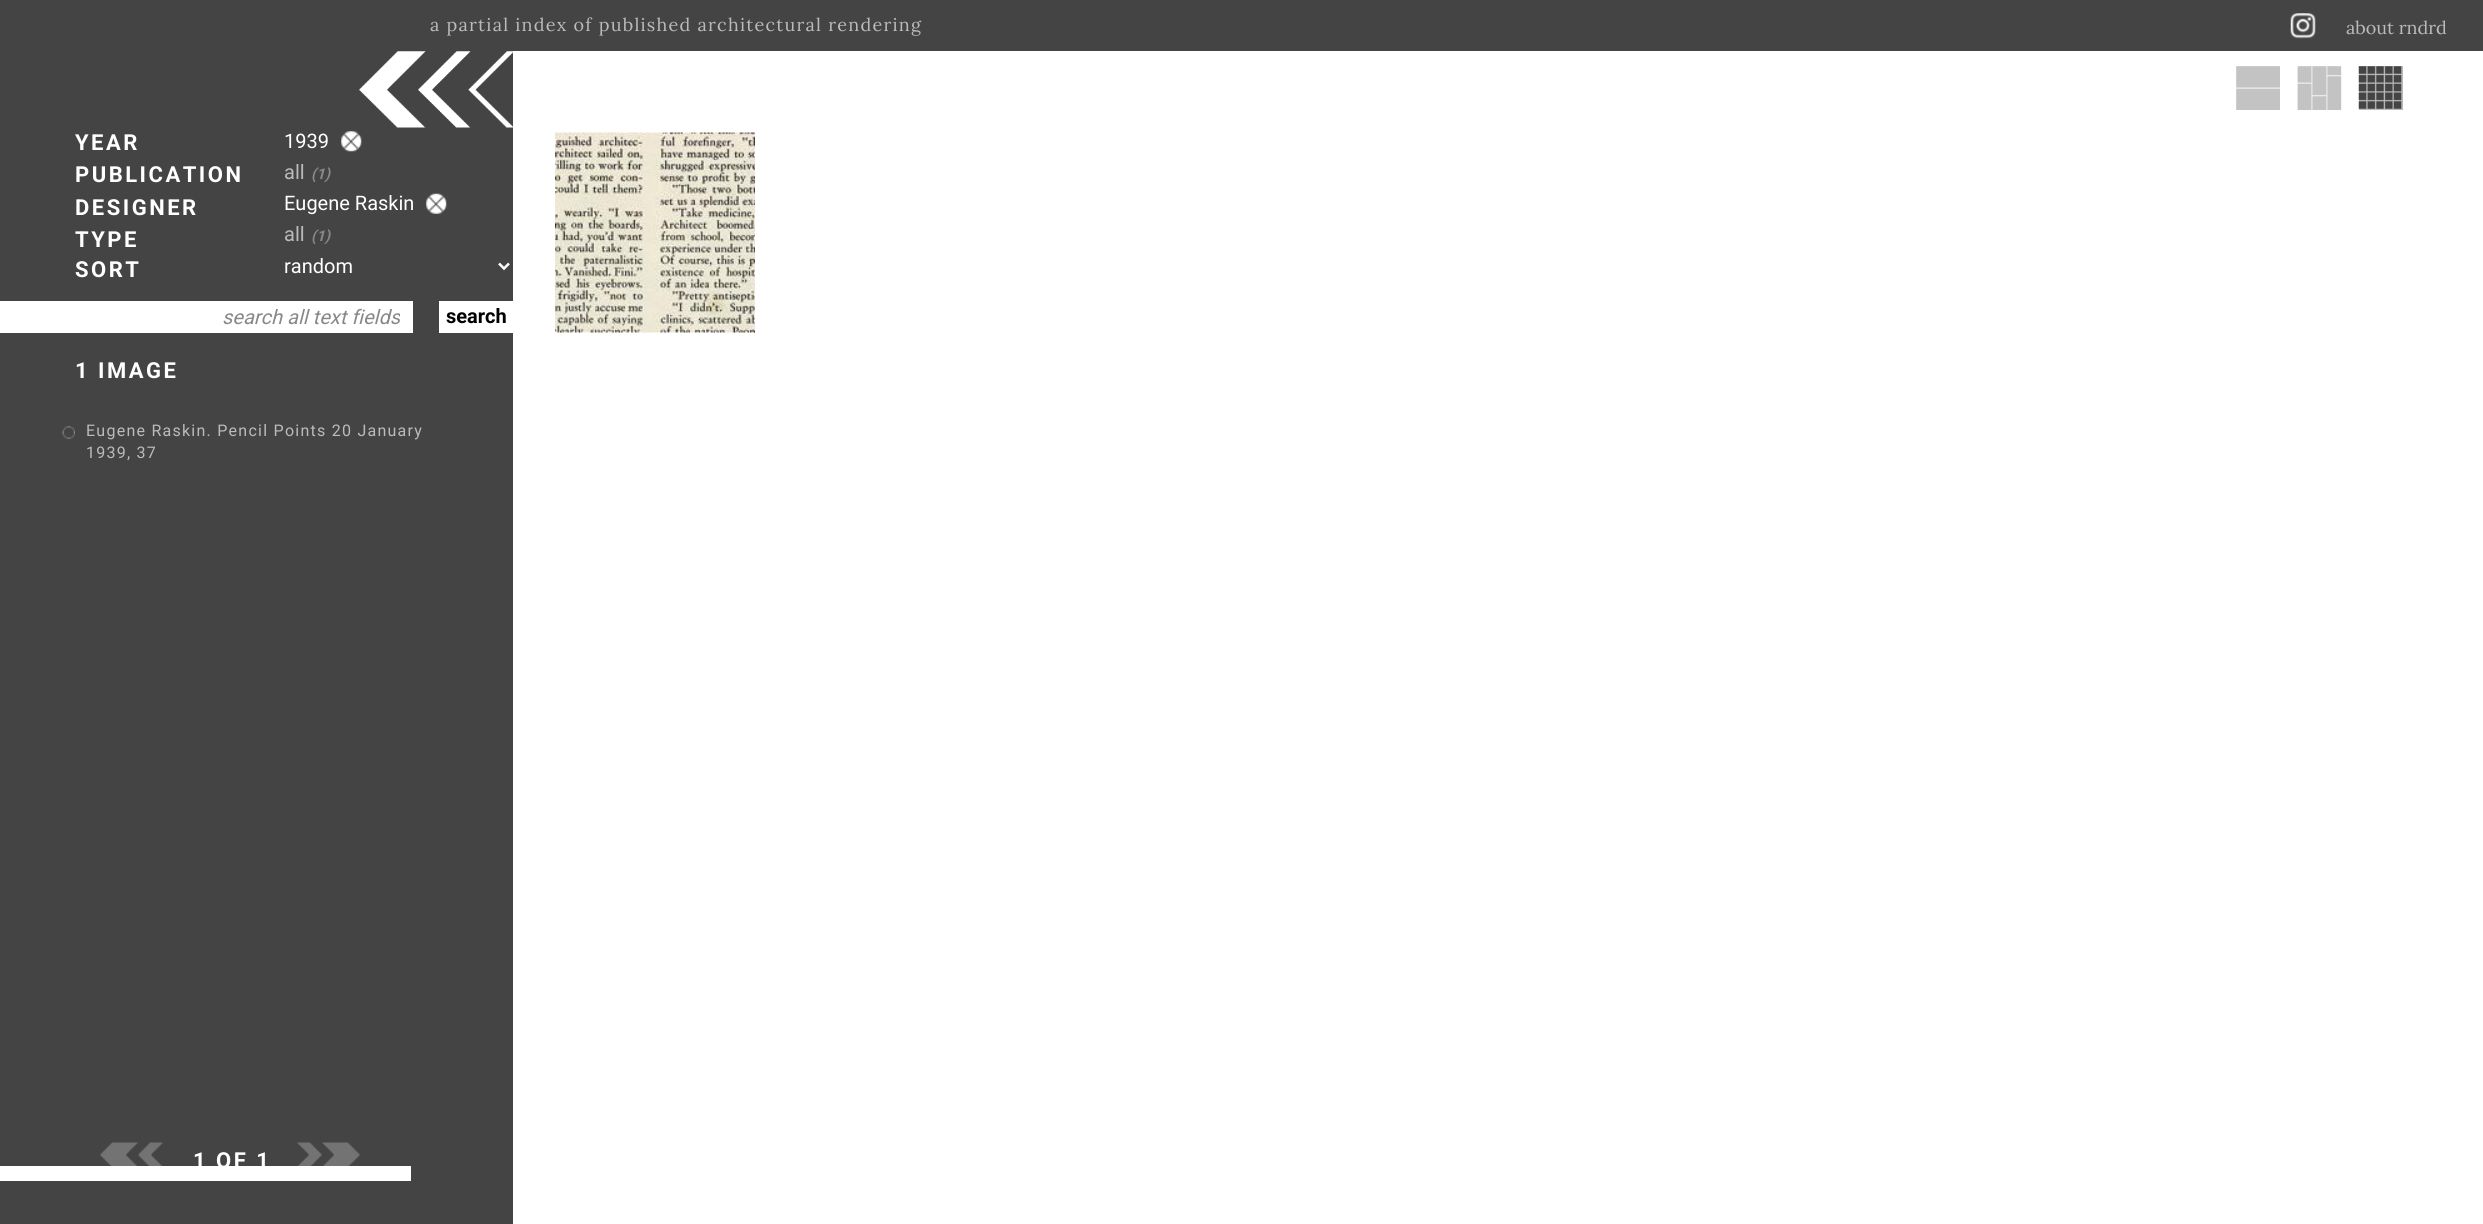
#include <cairo/cairo.h>
#include <math.h>
#include <stddef.h>

static cairo_t *cr;

static void use_color(int r, int g, int b) {
  cairo_set_source_rgb(cr, r / 255.0, g / 255.0, b / 255.0);
}

static void text(double x, double y, const char *s, const char *family, double size, int italic, int bold, int r, int g, int b) {
  cairo_select_font_face(cr, family, italic ? CAIRO_FONT_SLANT_ITALIC : CAIRO_FONT_SLANT_NORMAL,
    bold ? CAIRO_FONT_WEIGHT_BOLD : CAIRO_FONT_WEIGHT_NORMAL);
  cairo_set_font_size(cr, size);
  use_color(r, g, b);
  cairo_move_to(cr, x, y);
  cairo_show_text(cr, s);
}

static void spaced_text(double x, double y, const char *s, double letter, double word) {
  cairo_move_to(cr, x, y);
  while (*s) {
    char ch[5] = {0};
    int n = 0;
    do ch[n++] = *s++; while ((*s & 0xC0) == 0x80);
    cairo_show_text(cr, ch);
    cairo_rel_move_to(cr, letter + word * (*ch == ' '), 0);
  }
}

static void box(double x, double y, double w, double h, int r, int g, int b) {
  use_color(r, g, b);
  cairo_rectangle(cr, x, y, w, h);
  cairo_fill(cr);
}

static void picture(const char *path, double x, double y, double w, double h) {
  cairo_surface_t *image = cairo_image_surface_create_from_png(path);
  cairo_save(cr);
  cairo_set_source_surface(cr, image, x, y);
  cairo_rectangle(cr, x, y, w, h);
  cairo_fill(cr);
  cairo_restore(cr);
  cairo_surface_destroy(image);
}

static void draw(void) {
  use_color(68, 68, 68);
  cairo_paint(cr);
  picture("img_01.png", 2290, 13, 26, 26);
  picture("img_02.png", 341, 131, 21, 21);
  picture("img_03.png", 426, 193, 21, 21);
  cairo_new_path(cr);
  cairo_move_to(cr, 499, 263.5);
  cairo_line_to(cr, 504, 268.5);
  cairo_line_to(cr, 509, 263.5);
  use_color(255, 255, 255);
  cairo_set_line_width(cr, 2.5);
  cairo_stroke(cr);
  box(0, 301, 413, 32, 255, 255, 255);
  box(439, 301, 74, 32, 255, 255, 255);
  picture("img_04.png", 62, 426, 13, 13);
  picture("img_05.png", 100, 1142, 63, 24);
  picture("img_06.png", 297, 1142, 63, 24);
  box(0, 1166, 411, 15, 255, 255, 255);
  box(513, 51, 1970, 1173, 255, 255, 255);
  picture("img_07.png", 358, 51, 155, 77);
  box(2236, 66, 44, 44, 238, 238, 238);
  picture("img_08.png", 2236, 66, 44, 44);
  box(2298, 66, 43, 44, 238, 238, 238);
  picture("img_09.png", 2297, 66, 45, 44);
  box(2359, 66, 44, 44, 187, 187, 187);
  picture("img_10.png", 2358, 66, 44, 43);
  picture("img_11.png", 555, 132, 200, 201);
  cairo_select_font_face(cr, "Lora", CAIRO_FONT_SLANT_NORMAL, CAIRO_FONT_WEIGHT_NORMAL);
  cairo_set_font_size(cr, 18);
  spaced_text(430, 31, "a partial index of published architectural rendering", 1.25, 0);
  text(2346, 34, "about rndrd", "Lora", 18, 0, 0, 187, 187, 187);
  cairo_select_font_face(cr, "Roboto", CAIRO_FONT_SLANT_NORMAL, CAIRO_FONT_WEIGHT_BOLD);
  cairo_set_font_size(cr, 22);
  use_color(255, 255, 255);
  spaced_text(75, 150, "YEAR", 2.5, 0);
  spaced_text(75, 182, "PUBLICATION", 2.5, 0);
  spaced_text(75, 215, "DESIGNER", 2.5, 0);
  spaced_text(75, 247, "TYPE", 2.5, 0);
  spaced_text(75, 277, "SORT", 2.5, 0);
  text(284, 148, "1939", "Roboto", 20, 0, 0, 255, 255, 255);
  text(284, 179, "all", "Roboto", 20, 0, 0, 187, 187, 187);
  text(311, 179, "(1)", "Roboto", 15, 1, 1, 136, 136, 136);
  text(284, 210, "Eugene Raskin", "Roboto", 20, 0, 0, 255, 255, 255);
  text(284, 241, "all", "Roboto", 20, 0, 0, 187, 187, 187);
  text(311, 241, "(1)", "Roboto", 15, 1, 1, 136, 136, 136);
  text(284, 273, "random", "Roboto", 20, 0, 0, 255, 255, 255);
  cairo_save(cr);
  cairo_rectangle(cr, 75, 305, 325, 24);
  cairo_clip(cr);
  text(222, 324, "search all text fields", "Roboto", 20, 1, 0, 136, 136, 136);
  cairo_restore(cr);
  text(446, 323, "search", "Roboto", 20, 0, 1, 0, 0, 0);
  cairo_set_font_size(cr, 22);
  use_color(255, 255, 255);
  spaced_text(75, 378, "1 IMAGE", 2.5, 0);
  cairo_select_font_face(cr, "Roboto", CAIRO_FONT_SLANT_NORMAL, CAIRO_FONT_WEIGHT_NORMAL);
  cairo_set_font_size(cr, 16);
  use_color(187, 187, 187);
  spaced_text(86, 436, "Eugene Raskin. Pencil Points 20 January", 1.25, 0);
  spaced_text(86, 458, "1939, 37", 1.25, 0);
  cairo_select_font_face(cr, "Roboto", CAIRO_FONT_SLANT_NORMAL, CAIRO_FONT_WEIGHT_BOLD);
  cairo_set_font_size(cr, 22);
  use_color(255, 255, 255);
  spaced_text(193, 1168, "1 OF 1", 2.5, 0);
}

int main(void) {
  cairo_surface_t *surface = cairo_image_surface_create(CAIRO_FORMAT_RGB24, 2483, 1224);
  cr = cairo_create(surface);
  cairo_font_options_t *options = cairo_font_options_create();
  cairo_font_options_set_hint_metrics(options, CAIRO_HINT_METRICS_OFF);
  cairo_font_options_set_hint_style(options, CAIRO_HINT_STYLE_NONE);
  cairo_set_font_options(cr, options);
  cairo_set_miter_limit(cr, 4);
  draw();
  cairo_surface_write_to_png(surface, "out.png");
  cairo_font_options_destroy(options);
  cairo_destroy(cr);
  cairo_surface_destroy(surface);
  return 0;
}
